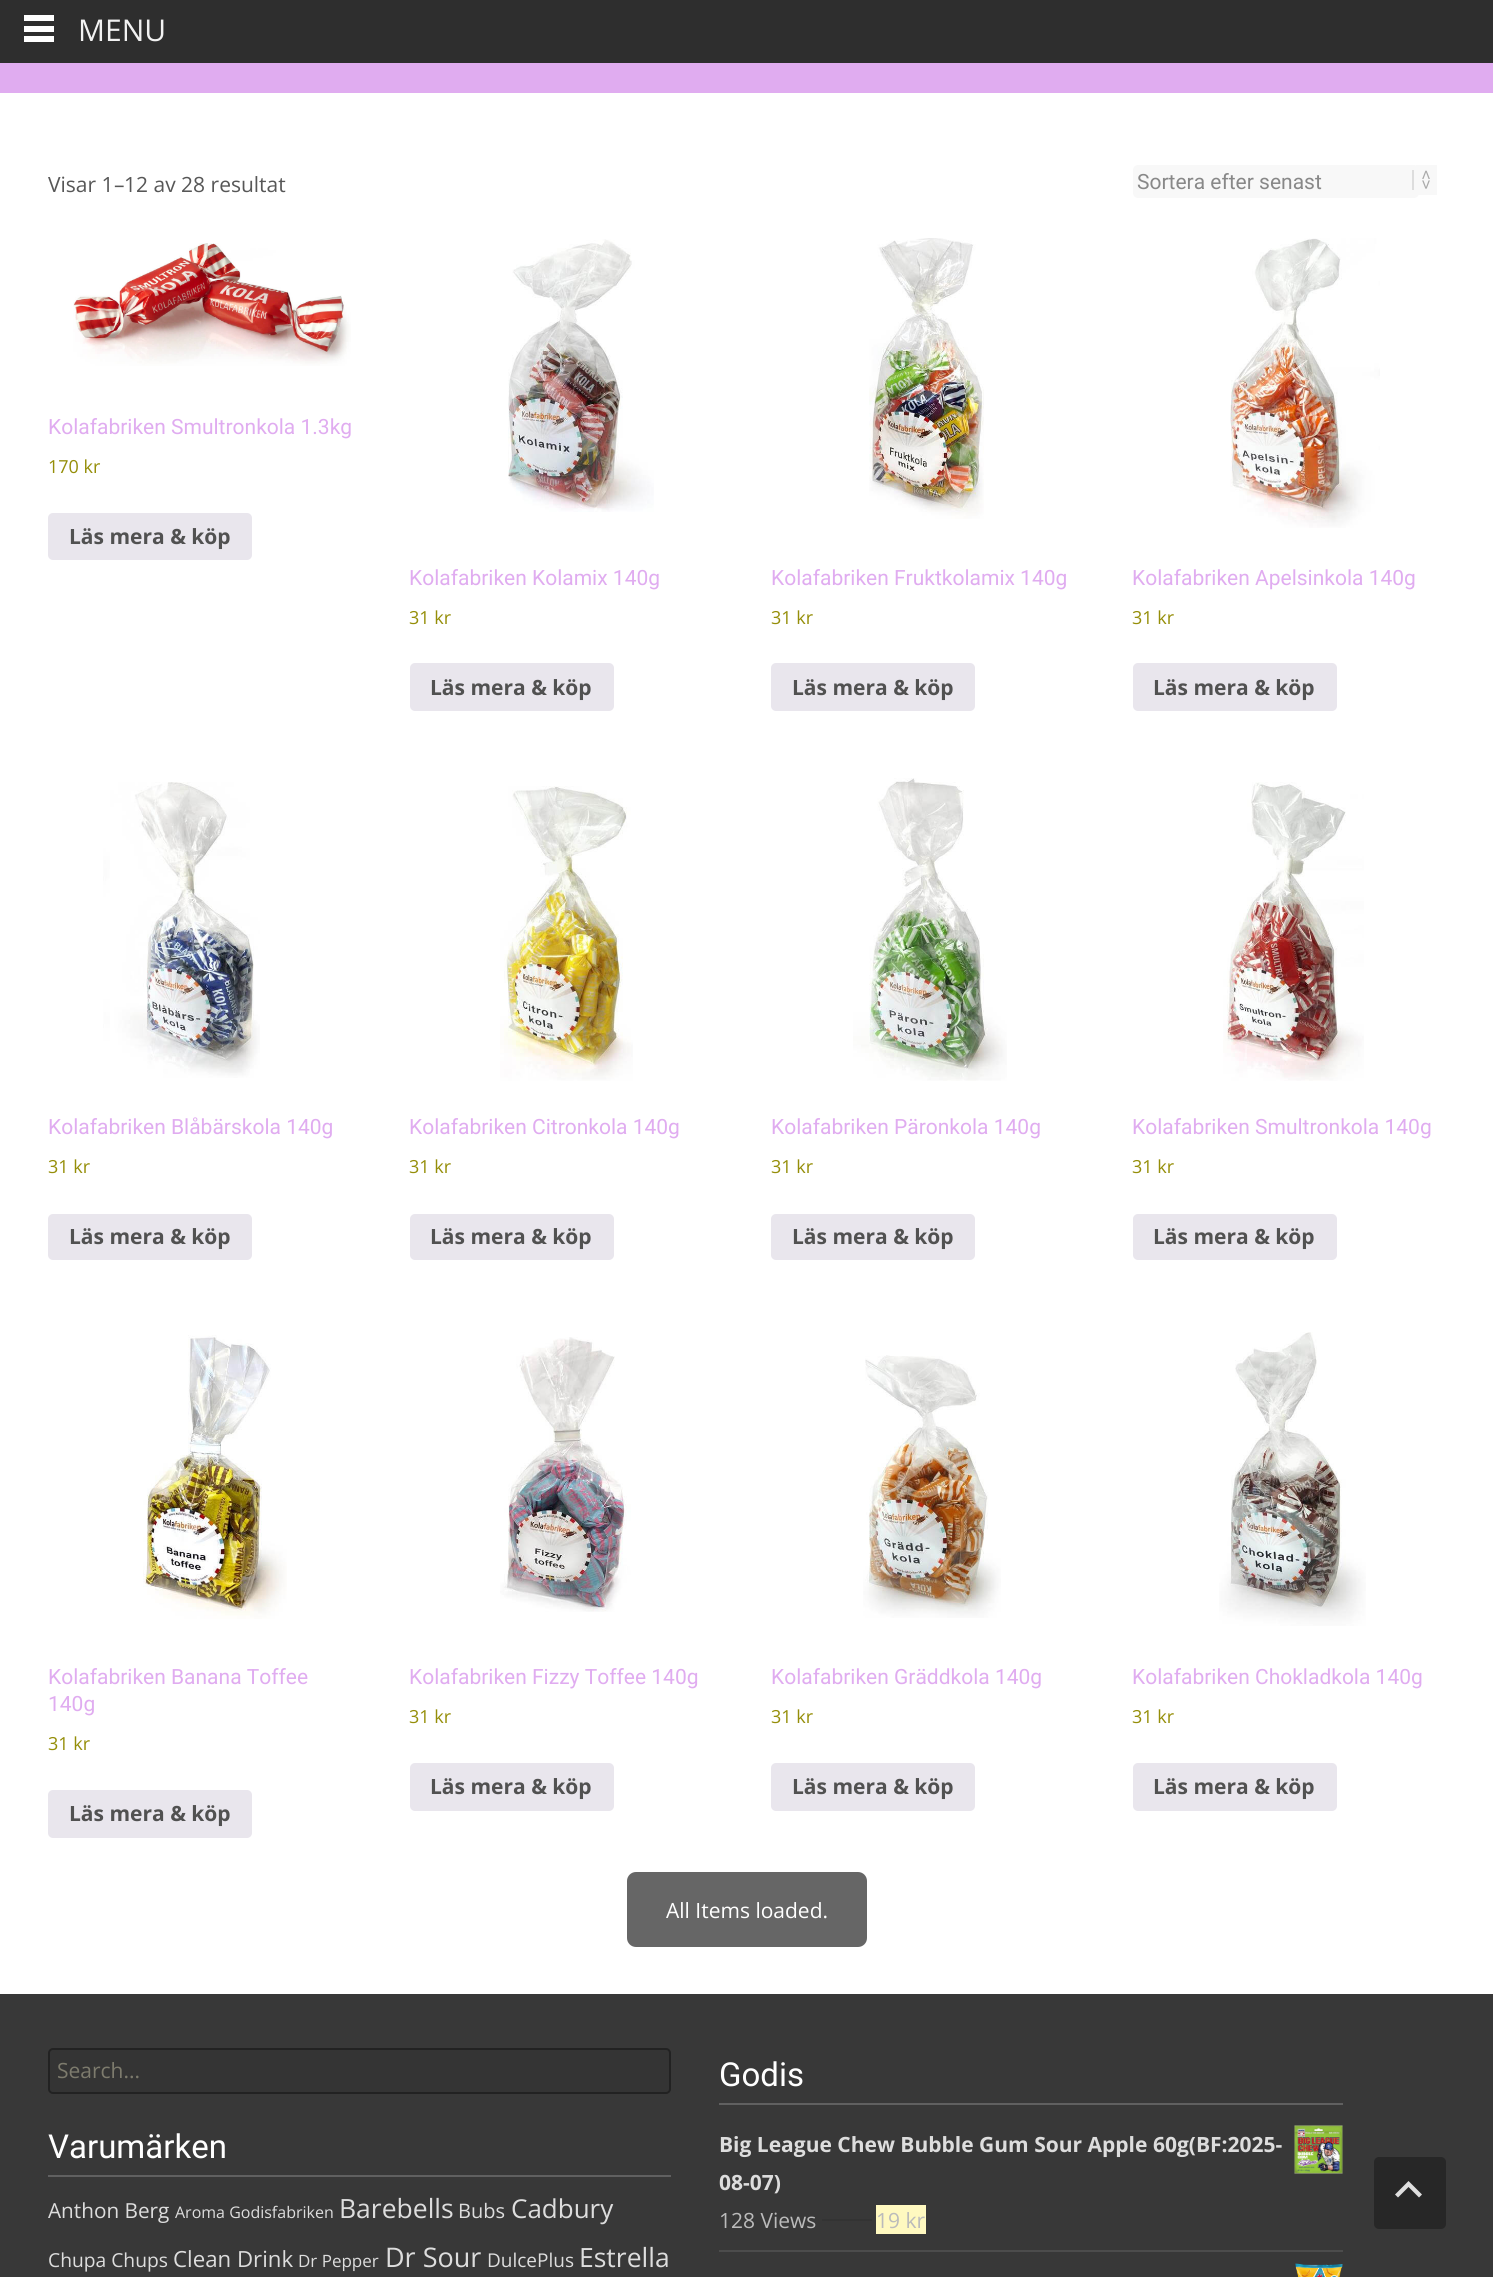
#include <cairo/cairo.h>
#include <math.h>
#include <stddef.h>

static cairo_t *cr;

static void use_color(int r, int g, int b) {
  cairo_set_source_rgb(cr, r / 255.0, g / 255.0, b / 255.0);
}

static void text(double x, double y, const char *s, const char *family, double size, int italic, int bold, int r, int g, int b) {
  cairo_select_font_face(cr, family, italic ? CAIRO_FONT_SLANT_ITALIC : CAIRO_FONT_SLANT_NORMAL,
    bold ? CAIRO_FONT_WEIGHT_BOLD : CAIRO_FONT_WEIGHT_NORMAL);
  cairo_set_font_size(cr, size);
  use_color(r, g, b);
  cairo_move_to(cr, x, y);
  cairo_show_text(cr, s);
}

static void box(double x, double y, double w, double h, int r, int g, int b) {
  use_color(r, g, b);
  cairo_rectangle(cr, x, y, w, h);
  cairo_fill(cr);
}

static void round_rect(double x, double y, double w, double h, double r) {
  cairo_new_sub_path(cr);
  cairo_arc(cr, x + w - r, y + h - r, r, 0, M_PI / 2);
  cairo_arc(cr, x + r, y + h - r, r, M_PI / 2, M_PI);
  cairo_arc(cr, x + r, y + r, r, M_PI, 1.5 * M_PI);
  cairo_arc(cr, x + w - r, y + r, r, 1.5 * M_PI, 2 * M_PI);
  cairo_close_path(cr);
}

static void picture(const char *path, double x, double y, double w, double h) {
  cairo_surface_t *image = cairo_image_surface_create_from_png(path);
  cairo_save(cr);
  cairo_set_source_surface(cr, image, x, y);
  cairo_rectangle(cr, x, y, w, h);
  cairo_fill(cr);
  cairo_restore(cr);
  cairo_surface_destroy(image);
}

static void draw(void) {
  use_color(255, 255, 255);
  cairo_paint(cr);
  box(0, 0, 1493, 63, 46, 46, 46);
  box(24, 15, 30, 6, 255, 255, 255);
  box(24, 26, 30, 6, 255, 255, 255);
  box(24, 36, 30, 6, 255, 255, 255);
  box(0, 63, 1493, 30, 224, 172, 240);
  use_color(248, 248, 248);
  round_rect(1133, 165, 286, 33, 5);
  cairo_fill(cr);
  box(1416, 165, 21, 30, 248, 248, 248);
  box(1412, 170, 2, 20, 221, 221, 221);
  picture("img_01.png", 73, 243, 278, 123);
  use_color(233, 230, 237);
  round_rect(48, 513, 204, 47, 5);
  cairo_fill(cr);
  picture("img_02.png", 508, 239, 146, 273);
  round_rect(410, 663, 204, 48, 5);
  cairo_fill(cr);
  picture("img_03.png", 869, 238, 115, 281);
  round_rect(771, 663, 204, 48, 5);
  cairo_fill(cr);
  picture("img_04.png", 1230, 238, 150, 290);
  round_rect(1133, 663, 204, 48, 5);
  cairo_fill(cr);
  picture("img_05.png", 103, 782, 157, 296);
  round_rect(48, 1214, 204, 46, 5);
  cairo_fill(cr);
  picture("img_06.png", 500, 786, 133, 295);
  round_rect(410, 1214, 204, 46, 5);
  cairo_fill(cr);
  picture("img_07.png", 853, 778, 154, 303);
  round_rect(771, 1214, 204, 46, 5);
  cairo_fill(cr);
  picture("img_08.png", 1223, 782, 141, 299);
  round_rect(1133, 1214, 204, 46, 5);
  cairo_fill(cr);
  picture("img_09.png", 143, 1335, 144, 284);
  round_rect(48, 1790, 204, 48, 5);
  cairo_fill(cr);
  picture("img_10.png", 500, 1337, 131, 275);
  round_rect(410, 1763, 204, 48, 5);
  cairo_fill(cr);
  picture("img_11.png", 863, 1355, 138, 263);
  round_rect(771, 1763, 204, 48, 5);
  cairo_fill(cr);
  picture("img_12.png", 1219, 1332, 147, 294);
  round_rect(1133, 1763, 204, 48, 5);
  cairo_fill(cr);
  use_color(102, 102, 102);
  round_rect(627, 1872, 240, 75, 9);
  cairo_fill(cr);
  box(0, 1994, 1493, 283, 56, 56, 56);
  use_color(52, 52, 52);
  round_rect(49, 2049, 621, 44, 4);
  cairo_fill_preserve(cr);
  use_color(34, 34, 34);
  cairo_stroke(cr);
  box(719, 2103, 624, 2, 96, 96, 96);
  box(719, 2250, 624, 2, 76, 76, 76);
  picture("img_13.png", 1294, 2125, 49, 49);
  box(822, 2219, 50, 2, 51, 51, 51);
  box(876, 2205, 50, 29, 255, 249, 192);
  picture("img_14.png", 1295, 2263, 48, 14);
  box(48, 2175, 623, 2, 96, 96, 96);
  use_color(39, 39, 39);
  round_rect(1374, 2157, 72, 72, 5);
  cairo_fill(cr);
  use_color(223, 223, 223);
  cairo_new_path(cr);
  cairo_move_to(cr, 1395, 2194.5);
  cairo_line_to(cr, 1408.5, 2181);
  cairo_line_to(cr, 1422, 2194.5);
  cairo_line_to(cr, 1419, 2197.5);
  cairo_line_to(cr, 1408.5, 2187);
  cairo_line_to(cr, 1398, 2197.5);
  cairo_close_path(cr);
  cairo_fill(cr);
  text(78, 41, "MENU", "Open Sans", 30, 0, 0, 242, 242, 242);
  text(48, 192, "Visar 1", "Open Sans", 21, 0, 0, 87, 87, 87);
  text(114, 192, "–", "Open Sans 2", 21, 0, 0, 87, 87, 87);
  text(124, 192, "12 av 28 resultat", "Open Sans", 21, 0, 0, 87, 87, 87);
  text(1137, 189, "Sortera efter senast", "Roboto", 21, 0, 0, 136, 136, 136);
  cairo_save(cr);
  cairo_translate(cr, 1421, 170);
  cairo_rotate(cr, 90 * M_PI / 180);
  text(0, 0, "<>", "DejaVu Sans Mono", 16, 0, 0, 170, 170, 170);
  cairo_restore(cr);
  text(48, 434, "Kolafabriken Smultronkola 1.3kg", "Roboto", 21, 0, 0, 224, 172, 240);
  text(48, 473, "170 kr", "Open Sans", 18, 0, 0, 149, 142, 9);
  text(69, 544, "Läs mera & köp", "Open Sans", 21, 0, 1, 81, 81, 81);
  text(409, 585, "Kolafabriken Kolamix 140g", "Roboto", 21, 0, 0, 224, 172, 240);
  text(409, 624, "31 kr", "Open Sans", 18, 0, 0, 149, 142, 9);
  text(430, 695, "Läs mera & köp", "Open Sans", 21, 0, 1, 81, 81, 81);
  text(771, 585, "Kolafabriken Fruktkolamix 140g", "Roboto", 21, 0, 0, 224, 172, 240);
  text(771, 624, "31 kr", "Open Sans", 18, 0, 0, 149, 142, 9);
  text(792, 695, "Läs mera & köp", "Open Sans", 21, 0, 1, 81, 81, 81);
  text(1132, 585, "Kolafabriken Apelsinkola 140g", "Roboto", 21, 0, 0, 224, 172, 240);
  text(1132, 624, "31 kr", "Open Sans", 18, 0, 0, 149, 142, 9);
  text(1153, 695, "Läs mera & köp", "Open Sans", 21, 0, 1, 81, 81, 81);
  text(48, 1134, "Kolafabriken Blåbärskola 140g", "Roboto", 21, 0, 0, 224, 172, 240);
  text(48, 1173, "31 kr", "Open Sans", 18, 0, 0, 149, 142, 9);
  text(69, 1244, "Läs mera & köp", "Open Sans", 21, 0, 1, 81, 81, 81);
  text(409, 1134, "Kolafabriken Citronkola 140g", "Roboto", 21, 0, 0, 224, 172, 240);
  text(409, 1173, "31 kr", "Open Sans", 18, 0, 0, 149, 142, 9);
  text(430, 1244, "Läs mera & köp", "Open Sans", 21, 0, 1, 81, 81, 81);
  text(771, 1134, "Kolafabriken Päronkola 140g", "Roboto", 21, 0, 0, 224, 172, 240);
  text(771, 1173, "31 kr", "Open Sans", 18, 0, 0, 149, 142, 9);
  text(792, 1244, "Läs mera & köp", "Open Sans", 21, 0, 1, 81, 81, 81);
  text(1132, 1134, "Kolafabriken Smultronkola 140g", "Roboto", 21, 0, 0, 224, 172, 240);
  text(1132, 1173, "31 kr", "Open Sans", 18, 0, 0, 149, 142, 9);
  text(1153, 1244, "Läs mera & köp", "Open Sans", 21, 0, 1, 81, 81, 81);
  text(48, 1684, "Kolafabriken Banana Toffee", "Roboto", 21, 0, 0, 224, 172, 240);
  text(48, 1711, "140g", "Roboto", 21, 0, 0, 224, 172, 240);
  text(48, 1750, "31 kr", "Open Sans", 18, 0, 0, 149, 142, 9);
  text(69, 1821, "Läs mera & köp", "Open Sans", 21, 0, 1, 81, 81, 81);
  text(409, 1684, "Kolafabriken Fizzy Toffee 140g", "Roboto", 21, 0, 0, 224, 172, 240);
  text(409, 1723, "31 kr", "Open Sans", 18, 0, 0, 149, 142, 9);
  text(430, 1794, "Läs mera & köp", "Open Sans", 21, 0, 1, 81, 81, 81);
  text(771, 1684, "Kolafabriken Gräddkola 140g", "Roboto", 21, 0, 0, 224, 172, 240);
  text(771, 1723, "31 kr", "Open Sans", 18, 0, 0, 149, 142, 9);
  text(792, 1794, "Läs mera & köp", "Open Sans", 21, 0, 1, 81, 81, 81);
  text(1132, 1684, "Kolafabriken Chokladkola 140g", "Roboto", 21, 0, 0, 224, 172, 240);
  text(1132, 1723, "31 kr", "Open Sans", 18, 0, 0, 149, 142, 9);
  text(1153, 1794, "Läs mera & köp", "Open Sans", 21, 0, 1, 81, 81, 81);
  text(666, 1918, "All Items loaded.", "Open Sans", 21, 0, 0, 255, 255, 255);
  text(57, 2078, "Search...", "Open Sans", 21, 0, 0, 125, 123, 109);
  text(719, 2086, "Godis", "Roboto", 33, 0, 0, 255, 255, 255);
  text(719, 2152, "Big League Chew Bubble Gum Sour Apple 60g(BF:2025-", "Open Sans", 21, 0, 1, 221, 221, 221);
  text(719, 2190, "08-07)", "Open Sans", 21, 0, 1, 221, 221, 221);
  text(719, 2228, "128 Views", "Open Sans", 21, 0, 0, 187, 187, 187);
  text(876, 2228, "19 kr", "Open Sans", 21, 0, 0, 187, 187, 187);
  text(48, 2158, "Varumärken", "Roboto", 33, 0, 0, 255, 255, 255);
  text(48, 2218, "Anthon Berg", "Open Sans", 20.75, 0, 0, 221, 221, 221);
  text(175, 2218, "Aroma Godisfabriken", "Open Sans", 16, 0, 0, 221, 221, 221);
  text(339, 2218, "Barebells", "Open Sans", 26.5, 0, 0, 221, 221, 221);
  text(458, 2218, "Bubs", "Open Sans", 20, 0, 0, 221, 221, 221);
  text(511, 2218, "Cadbury", "Open Sans", 26, 0, 0, 221, 221, 221);
  text(48, 2267, "Chupa Chups", "Open Sans", 19.25, 0, 0, 221, 221, 221);
  text(173, 2267, "Clean Drink", "Open Sans", 22.25, 0, 0, 221, 221, 221);
  text(298, 2267, "Dr Pepper", "Open Sans", 17, 0, 0, 221, 221, 221);
  text(385, 2267, "Dr Sour", "Open Sans", 27, 0, 0, 221, 221, 221);
  text(487, 2267, "DulcePlus", "Open Sans", 19, 0, 0, 221, 221, 221);
  text(579, 2267, "Estrella", "Open Sans", 26.5, 0, 0, 221, 221, 221);
}

int main(void) {
  cairo_surface_t *surface = cairo_image_surface_create(CAIRO_FORMAT_RGB24, 1493, 2277);
  cr = cairo_create(surface);
  cairo_font_options_t *options = cairo_font_options_create();
  cairo_font_options_set_hint_metrics(options, CAIRO_HINT_METRICS_OFF);
  cairo_font_options_set_hint_style(options, CAIRO_HINT_STYLE_NONE);
  cairo_set_font_options(cr, options);
  cairo_set_miter_limit(cr, 4);
  draw();
  cairo_surface_write_to_png(surface, "out.png");
  cairo_font_options_destroy(options);
  cairo_destroy(cr);
  cairo_surface_destroy(surface);
  return 0;
}
